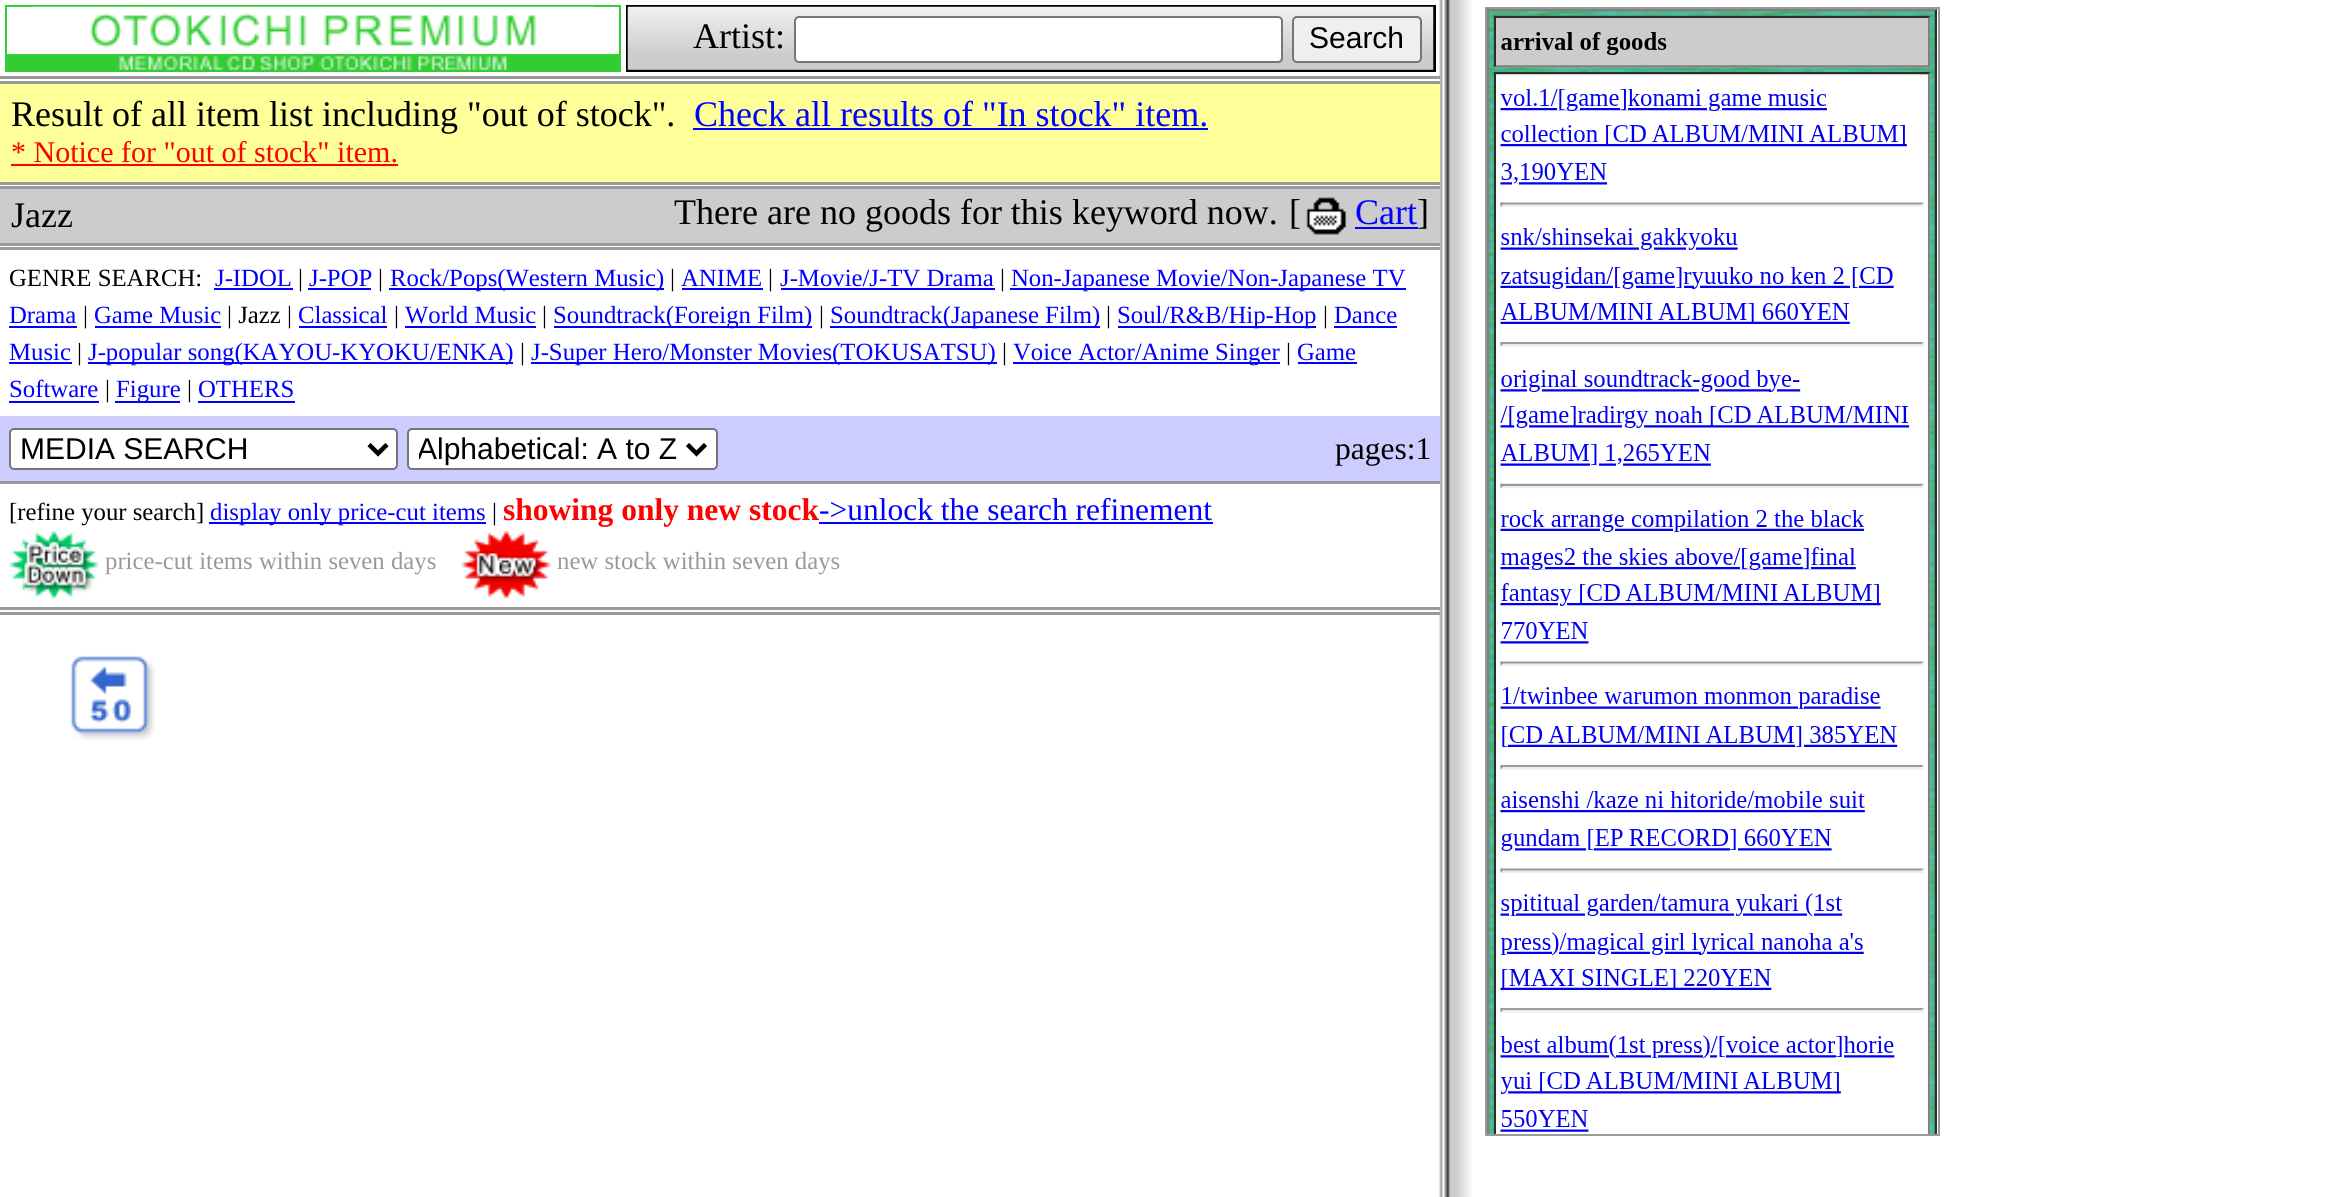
#include <cairo/cairo.h>
#include <math.h>
#include <stddef.h>

static cairo_t *cr;

static void use_color(int r, int g, int b) {
  cairo_set_source_rgb(cr, r / 255.0, g / 255.0, b / 255.0);
}

static void text(double x, double y, const char *s, const char *family, double size, int italic, int bold, int r, int g, int b) {
  cairo_select_font_face(cr, family, italic ? CAIRO_FONT_SLANT_ITALIC : CAIRO_FONT_SLANT_NORMAL,
    bold ? CAIRO_FONT_WEIGHT_BOLD : CAIRO_FONT_WEIGHT_NORMAL);
  cairo_set_font_size(cr, size);
  use_color(r, g, b);
  cairo_move_to(cr, x, y);
  cairo_show_text(cr, s);
}

static void box(double x, double y, double w, double h, int r, int g, int b) {
  use_color(r, g, b);
  cairo_rectangle(cr, x, y, w, h);
  cairo_fill(cr);
}

static void round_rect(double x, double y, double w, double h, double r) {
  cairo_new_sub_path(cr);
  cairo_arc(cr, x + w - r, y + h - r, r, 0, M_PI / 2);
  cairo_arc(cr, x + r, y + h - r, r, M_PI / 2, M_PI);
  cairo_arc(cr, x + r, y + r, r, M_PI, 1.5 * M_PI);
  cairo_arc(cr, x + w - r, y + r, r, 1.5 * M_PI, 2 * M_PI);
  cairo_close_path(cr);
}

static void picture(const char *path, double x, double y, double w, double h) {
  cairo_surface_t *image = cairo_image_surface_create_from_png(path);
  cairo_save(cr);
  cairo_set_source_surface(cr, image, x, y);
  cairo_rectangle(cr, x, y, w, h);
  cairo_fill(cr);
  cairo_restore(cr);
  cairo_surface_destroy(image);
}

static void draw(void) {
  use_color(255, 255, 255);
  cairo_paint(cr);
  picture("img_01.png", 1439, 0, 33, 1197);
  box(5, 5, 616, 67, 51, 204, 51);
  box(7, 7, 612, 47, 255, 255, 255);
  picture("img_02.png", 31, 6, 563, 42);
  picture("img_03.png", 118, 55, 389, 15);
  box(626, 5, 810, 67, 0, 0, 0);
  picture("img_04.png", 627, 6, 807, 64);
  use_color(255, 255, 255);
  round_rect(795, 17, 487, 45, 4);
  cairo_fill_preserve(cr);
  use_color(118, 118, 118);
  cairo_stroke(cr);
  use_color(239, 239, 239);
  round_rect(1293, 17, 128, 45, 4);
  cairo_fill_preserve(cr);
  use_color(118, 118, 118);
  cairo_stroke(cr);
  cairo_rectangle(cr, 1486, 8, 453, 1127);
  use_color(153, 153, 153);
  cairo_stroke(cr);
  picture("img_05.png", 1487, 9, 450, 1125);
  box(0, 76, 1440, 3, 153, 153, 153);
  box(0, 81, 1440, 3, 153, 153, 153);
  box(0, 84, 1440, 98, 255, 255, 153);
  box(693, 128, 515, 2, 0, 0, 255);
  box(11, 164, 387, 2, 255, 0, 0);
  box(0, 182, 1440, 3, 153, 153, 153);
  box(0, 186, 1440, 3, 153, 153, 153);
  box(0, 189, 1440, 54, 204, 204, 204);
  picture("img_06.png", 1306, 197, 41, 38);
  box(1355, 227, 63, 2, 0, 0, 255);
  box(0, 243, 1440, 3, 153, 153, 153);
  box(0, 247, 1440, 3, 153, 153, 153);
  box(1439, 250, 1, 166, 255, 255, 255);
  box(214, 288, 79, 2, 0, 0, 255);
  box(308, 288, 63, 2, 0, 0, 255);
  box(389, 288, 275, 2, 0, 0, 255);
  box(682, 288, 81, 2, 0, 0, 255);
  box(781, 288, 214, 2, 0, 0, 255);
  box(1010, 288, 396, 2, 0, 0, 255);
  box(9, 326, 68, 2, 0, 0, 255);
  box(95, 326, 126, 2, 0, 0, 255);
  box(299, 326, 88, 2, 0, 0, 255);
  box(405, 326, 131, 2, 0, 0, 255);
  box(554, 326, 258, 2, 0, 0, 255);
  box(830, 326, 270, 2, 0, 0, 255);
  box(1118, 326, 198, 2, 0, 0, 255);
  box(1334, 326, 63, 2, 0, 0, 255);
  box(9, 362, 63, 2, 0, 0, 255);
  box(88, 362, 425, 2, 0, 0, 255);
  box(531, 362, 466, 2, 0, 0, 255);
  box(1013, 362, 267, 2, 0, 0, 255);
  box(1298, 362, 59, 2, 0, 0, 255);
  box(9, 401, 90, 2, 0, 0, 255);
  box(115, 401, 65, 2, 0, 0, 255);
  box(198, 401, 97, 2, 0, 0, 255);
  box(0, 416, 1440, 65, 204, 204, 255);
  use_color(255, 255, 255);
  round_rect(10, 429, 387, 40, 4);
  cairo_fill_preserve(cr);
  use_color(118, 118, 118);
  cairo_stroke(cr);
  cairo_new_path(cr);
  cairo_move_to(cr, 369, 444.5);
  cairo_line_to(cr, 378, 453.5);
  cairo_line_to(cr, 387, 444.5);
  use_color(0, 0, 0);
  cairo_set_line_width(cr, 4.5);
  cairo_stroke(cr);
  use_color(255, 255, 255);
  round_rect(408, 429, 309, 40, 4);
  cairo_fill_preserve(cr);
  use_color(118, 118, 118);
  cairo_set_line_width(cr, 2);
  cairo_stroke(cr);
  cairo_new_path(cr);
  cairo_move_to(cr, 687.5, 444.5);
  cairo_line_to(cr, 696.5, 453.5);
  cairo_line_to(cr, 705.5, 444.5);
  use_color(0, 0, 0);
  cairo_set_line_width(cr, 4.5);
  cairo_stroke(cr);
  box(0, 481, 1440, 3, 153, 153, 153);
  box(1439, 484, 1, 123, 255, 255, 255);
  box(209, 522, 277, 2, 0, 0, 255);
  picture("img_07.png", 9, 531, 90, 68);
  picture("img_08.png", 461, 531, 91, 68);
  box(0, 607, 1440, 3, 153, 153, 153);
  box(0, 612, 1440, 3, 153, 153, 153);
  picture("img_09.png", 70, 655, 85, 85);
  text(693, 48, "Artist:", "Liberation Serif", 36, 0, 0, 0, 0, 0);
  text(1309, 48, "Search", "Liberation Sans", 30, 0, 0, 0, 0, 0);
  text(11, 126, "Result of all item list including \"out of stock\".", "Liberation Serif", 36, 0, 0, 0, 0, 0);
  text(694, 126, "Check all results of \"In stock\" item.", "Liberation Serif", 36, 0, 0, 0, 0, 255);
  text(11, 162, "* Notice for \"out of stock\" item.", "Liberation Serif", 30, 0, 0, 255, 0, 0);
  text(11, 227, "Jazz", "Liberation Serif", 36, 0, 0, 0, 0, 0);
  text(674, 224, "There are no goods for this keyword now.", "Liberation Serif", 36, 0, 0, 0, 0, 0);
  text(1289, 224, "[", "Liberation Serif", 36, 0, 0, 0, 0, 0);
  text(1355, 224, "Cart", "Liberation Serif", 36, 0, 0, 0, 0, 255);
  text(1417, 224, "]", "Liberation Serif", 36, 0, 0, 0, 0, 0);
  text(9, 286, "GENRE SEARCH:", "Liberation Serif", 24.75, 0, 0, 0, 0, 0);
  text(215, 286, "J-IDOL", "Liberation Serif", 24.75, 0, 0, 0, 0, 255);
  text(298, 286, "|", "Liberation Serif", 24.75, 0, 0, 0, 0, 0);
  text(309, 286, "J-POP", "Liberation Serif", 24.75, 0, 0, 0, 0, 255);
  text(378, 286, "|", "Liberation Serif", 24.75, 0, 0, 0, 0, 0);
  text(390, 286, "Rock/Pops(Western Music)", "Liberation Serif", 24.75, 0, 0, 0, 0, 255);
  text(670, 286, "|", "Liberation Serif", 24.75, 0, 0, 0, 0, 0);
  text(681, 286, "ANIME", "Liberation Serif", 24.75, 0, 0, 0, 0, 255);
  text(768, 286, "|", "Liberation Serif", 24.75, 0, 0, 0, 0, 0);
  text(780, 286, "J-Movie/J-TV Drama", "Liberation Serif", 24.75, 0, 0, 0, 0, 255);
  text(1000, 286, "|", "Liberation Serif", 24.75, 0, 0, 0, 0, 0);
  text(1011, 286, "Non-Japanese Movie/Non-Japanese TV", "Liberation Serif", 24.75, 0, 0, 0, 0, 255);
  text(9, 323, "Drama", "Liberation Serif", 24.75, 0, 0, 0, 0, 255);
  text(83, 323, "|", "Liberation Serif", 24.75, 0, 0, 0, 0, 0);
  text(94, 323, "Game Music", "Liberation Serif", 24.75, 0, 0, 0, 0, 255);
  text(227, 323, "| Jazz |", "Liberation Serif", 24.75, 0, 0, 0, 0, 0);
  text(298, 323, "Classical", "Liberation Serif", 24.75, 0, 0, 0, 0, 255);
  text(394, 323, "|", "Liberation Serif", 24.75, 0, 0, 0, 0, 0);
  text(405, 323, "World Music", "Liberation Serif", 24.75, 0, 0, 0, 0, 255);
  text(542, 323, "|", "Liberation Serif", 24.75, 0, 0, 0, 0, 0);
  text(553, 323, "Soundtrack(Foreign Film)", "Liberation Serif", 24.75, 0, 0, 0, 0, 255);
  text(819, 323, "|", "Liberation Serif", 24.75, 0, 0, 0, 0, 0);
  text(830, 323, "Soundtrack(Japanese Film)", "Liberation Serif", 24.75, 0, 0, 0, 0, 255);
  text(1106, 323, "|", "Liberation Serif", 24.75, 0, 0, 0, 0, 0);
  text(1117, 323, "Soul/R&B/Hip-Hop", "Liberation Serif", 24.75, 0, 0, 0, 0, 255);
  text(1323, 323, "|", "Liberation Serif", 24.75, 0, 0, 0, 0, 0);
  text(1334, 323, "Dance", "Liberation Serif", 24.75, 0, 0, 0, 0, 255);
  text(9, 360, "Music", "Liberation Serif", 24.75, 0, 0, 0, 0, 255);
  text(77, 360, "|", "Liberation Serif", 24.75, 0, 0, 0, 0, 0);
  text(88, 360, "J-popular song(KAYOU-KYOKU/ENKA)", "Liberation Serif", 24.75, 0, 0, 0, 0, 255);
  text(520, 360, "|", "Liberation Serif", 24.75, 0, 0, 0, 0, 0);
  text(531, 360, "J-Super Hero/Monster Movies(TOKUSATSU)", "Liberation Serif", 24.75, 0, 0, 0, 0, 255);
  text(1002, 360, "|", "Liberation Serif", 24.75, 0, 0, 0, 0, 0);
  text(1013, 360, "Voice Actor/Anime Singer", "Liberation Serif", 24.75, 0, 0, 0, 0, 255);
  text(1286, 360, "|", "Liberation Serif", 24.75, 0, 0, 0, 0, 0);
  text(1297, 360, "Game", "Liberation Serif", 24.75, 0, 0, 0, 0, 255);
  text(9, 397, "Software", "Liberation Serif", 24.75, 0, 0, 0, 0, 255);
  text(105, 397, "|", "Liberation Serif", 24.75, 0, 0, 0, 0, 0);
  text(116, 397, "Figure", "Liberation Serif", 24.75, 0, 0, 0, 0, 255);
  text(187, 397, "|", "Liberation Serif", 24.75, 0, 0, 0, 0, 0);
  text(198, 397, "OTHERS", "Liberation Serif", 24.75, 0, 0, 0, 0, 255);
  text(20, 459, "MEDIA SEARCH", "Liberation Sans", 30, 0, 0, 0, 0, 0);
  cairo_save(cr);
  cairo_rectangle(cr, 419, 430, 261, 38);
  cairo_clip(cr);
  text(417, 459, "Alphabetical: A to Z", "Liberation Sans", 30, 0, 0, 0, 0, 0);
  cairo_restore(cr);
  text(1335, 459, "pages:1", "Liberation Serif", 31.5, 0, 0, 0, 0, 0);
  text(9, 520, "[refine your search]", "Liberation Serif", 24.75, 0, 0, 0, 0, 0);
  text(210, 520, "display only price-cut items", "Liberation Serif", 24.75, 0, 0, 0, 0, 255);
  text(492, 520, "|", "Liberation Serif", 24.75, 0, 0, 0, 0, 0);
  text(503, 520, "showing only new stock", "Liberation Serif", 31.5, 0, 1, 255, 0, 0);
  box(819, 522, 394, 2, 0, 0, 255);
  text(819, 520, "->unlock the search refinement", "Liberation Serif", 31.5, 0, 0, 0, 0, 255);
  text(105, 569, "price-cut items within seven days", "Liberation Serif", 24.75, 0, 0, 153, 153, 153);
  text(557, 569, "new stock within seven days", "Liberation Serif", 24.75, 0, 0, 153, 153, 153);
}

int main(void) {
  cairo_surface_t *surface = cairo_image_surface_create(CAIRO_FORMAT_RGB24, 2338, 1197);
  cr = cairo_create(surface);
  cairo_font_options_t *options = cairo_font_options_create();
  cairo_font_options_set_hint_metrics(options, CAIRO_HINT_METRICS_OFF);
  cairo_font_options_set_hint_style(options, CAIRO_HINT_STYLE_NONE);
  cairo_set_font_options(cr, options);
  cairo_set_miter_limit(cr, 4);
  draw();
  cairo_surface_write_to_png(surface, "out.png");
  cairo_font_options_destroy(options);
  cairo_destroy(cr);
  cairo_surface_destroy(surface);
  return 0;
}
